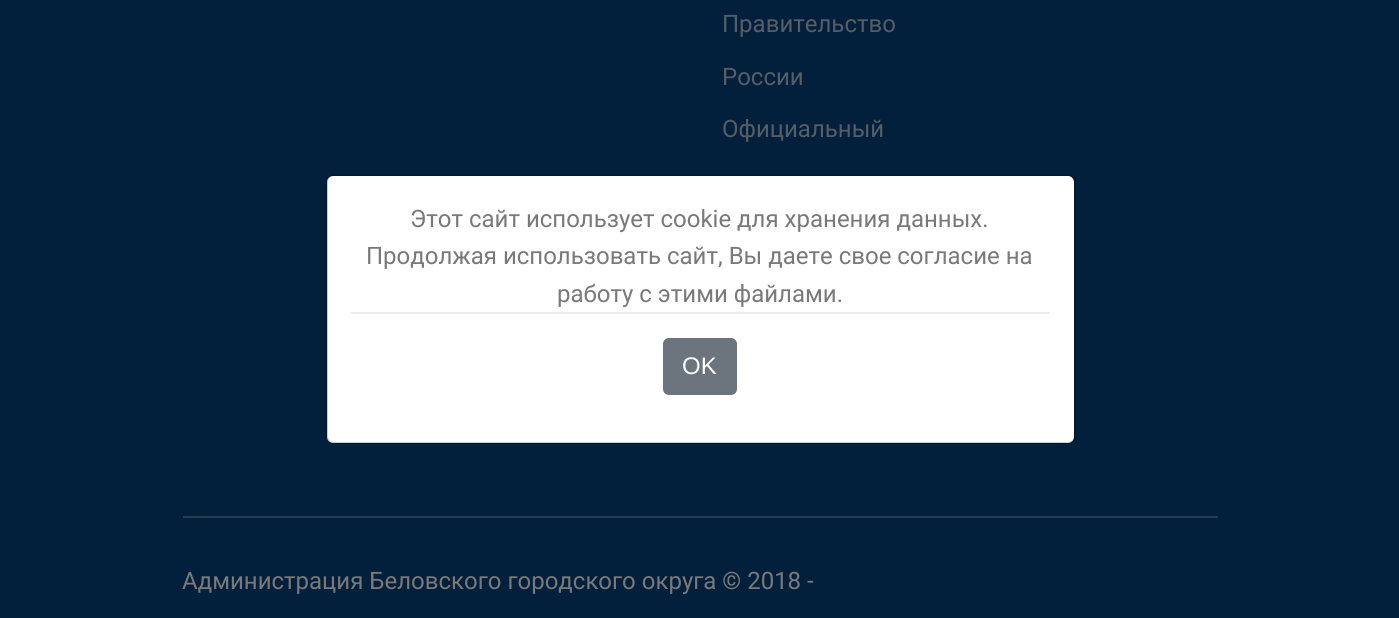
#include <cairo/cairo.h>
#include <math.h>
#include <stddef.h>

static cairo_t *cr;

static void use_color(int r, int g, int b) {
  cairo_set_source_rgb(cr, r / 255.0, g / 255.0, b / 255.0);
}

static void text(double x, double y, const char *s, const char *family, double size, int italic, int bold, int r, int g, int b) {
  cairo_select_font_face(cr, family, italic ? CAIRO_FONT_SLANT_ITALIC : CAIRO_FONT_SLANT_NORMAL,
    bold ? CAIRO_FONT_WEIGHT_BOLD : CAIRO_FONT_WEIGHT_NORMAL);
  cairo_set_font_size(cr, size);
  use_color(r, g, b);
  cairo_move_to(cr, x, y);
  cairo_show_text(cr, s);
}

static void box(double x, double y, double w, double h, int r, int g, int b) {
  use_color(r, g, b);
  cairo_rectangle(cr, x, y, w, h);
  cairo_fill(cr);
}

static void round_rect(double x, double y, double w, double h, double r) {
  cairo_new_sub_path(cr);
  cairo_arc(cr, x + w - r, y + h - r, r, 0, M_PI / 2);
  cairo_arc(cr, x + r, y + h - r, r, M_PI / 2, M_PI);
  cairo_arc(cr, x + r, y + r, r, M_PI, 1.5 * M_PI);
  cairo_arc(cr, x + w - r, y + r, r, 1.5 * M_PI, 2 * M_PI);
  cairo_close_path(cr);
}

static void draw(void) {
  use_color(2, 31, 59);
  cairo_paint(cr);
  box(183, 516, 1035, 2, 40, 60, 79);
  use_color(255, 255, 255);
  round_rect(327, 176, 747, 267, 6);
  cairo_fill(cr);
  round_rect(327, 175, 748, 268, 7);
  cairo_set_source_rgba(cr, 0, 0, 0, 0.2);
  cairo_stroke(cr);
  box(351, 312, 699, 2, 233, 236, 239);
  use_color(108, 117, 125);
  round_rect(664, 339, 72, 55, 5);
  cairo_fill_preserve(cr);
  cairo_stroke(cr);
  text(722, 32, "Правительство", "Roboto", 24, 0, 0, 85, 94, 102);
  text(722, 85, "России", "Roboto", 24, 0, 0, 85, 94, 102);
  text(722, 137, "Официальный", "Roboto", 24, 0, 0, 85, 94, 102);
  text(182, 589, "Администрация Беловского городского округа © 2018 -", "Roboto", 24, 0, 0, 121, 121, 121);
  text(410, 227, "Этот сайт использует cookie для хранения данных.", "Roboto", 24, 0, 0, 121, 121, 121);
  text(366, 264, "Продолжая использовать сайт, Вы даете свое согласие на", "Roboto", 24, 0, 0, 121, 121, 121);
  text(557, 302, "работу с этими файлами.", "Roboto", 24, 0, 0, 121, 121, 121);
  text(682, 374, "OK", "Liberation Sans", 24, 0, 0, 255, 255, 255);
}

int main(void) {
  cairo_surface_t *surface = cairo_image_surface_create(CAIRO_FORMAT_RGB24, 1399, 618);
  cr = cairo_create(surface);
  cairo_font_options_t *options = cairo_font_options_create();
  cairo_font_options_set_hint_metrics(options, CAIRO_HINT_METRICS_OFF);
  cairo_font_options_set_hint_style(options, CAIRO_HINT_STYLE_NONE);
  cairo_set_font_options(cr, options);
  cairo_set_miter_limit(cr, 4);
  draw();
  cairo_surface_write_to_png(surface, "out.png");
  cairo_font_options_destroy(options);
  cairo_destroy(cr);
  cairo_surface_destroy(surface);
  return 0;
}
